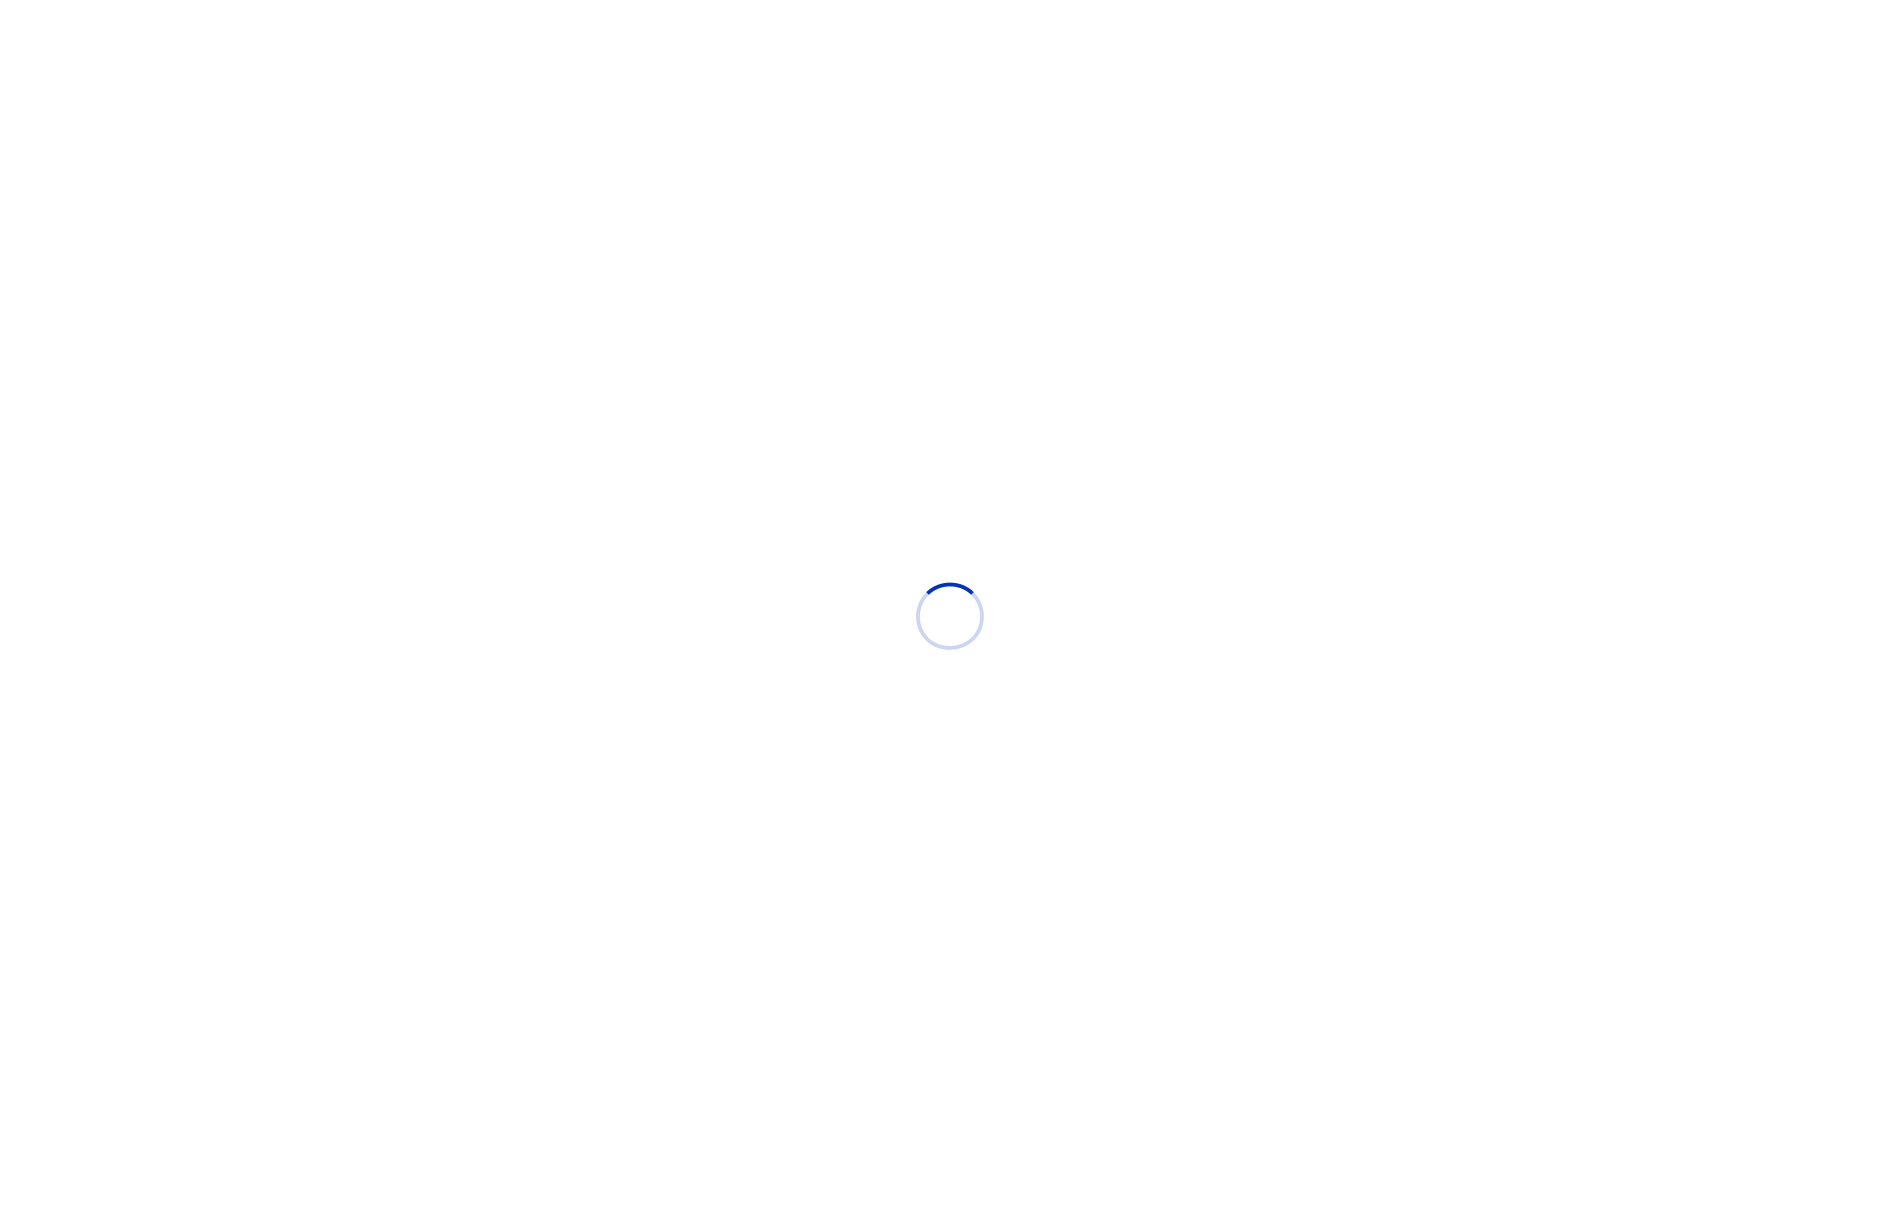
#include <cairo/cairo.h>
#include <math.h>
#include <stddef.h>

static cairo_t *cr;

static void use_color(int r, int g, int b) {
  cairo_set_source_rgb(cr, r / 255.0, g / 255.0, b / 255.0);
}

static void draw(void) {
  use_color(255, 255, 255);
  cairo_paint(cr);
  cairo_new_path(cr);
  cairo_move_to(cr, 927.5, 593.5);
  cairo_curve_to(cr, 939.5, 581.5, 960.5, 581.5, 972.5, 593.5);
  use_color(3, 51, 183);
  cairo_set_line_width(cr, 3.8);
  cairo_stroke(cr);
  cairo_new_path(cr);
  cairo_move_to(cr, 972.5, 593.5);
  cairo_curve_to(cr, 978.5, 599.5, 982, 608, 982, 616);
  cairo_curve_to(cr, 982, 654.5, 926, 660, 918.5, 622.5);
  cairo_curve_to(cr, 916.5, 612, 920, 601, 927.5, 593.5);
  cairo_set_source_rgba(cr, 0.012, 0.2, 0.718, 0.2);
  cairo_stroke(cr);
}

int main(void) {
  cairo_surface_t *surface = cairo_image_surface_create(CAIRO_FORMAT_RGB24, 1898, 1231);
  cr = cairo_create(surface);
  cairo_font_options_t *options = cairo_font_options_create();
  cairo_font_options_set_hint_metrics(options, CAIRO_HINT_METRICS_OFF);
  cairo_font_options_set_hint_style(options, CAIRO_HINT_STYLE_NONE);
  cairo_set_font_options(cr, options);
  cairo_set_miter_limit(cr, 4);
  draw();
  cairo_surface_write_to_png(surface, "out.png");
  cairo_font_options_destroy(options);
  cairo_destroy(cr);
  cairo_surface_destroy(surface);
  return 0;
}
